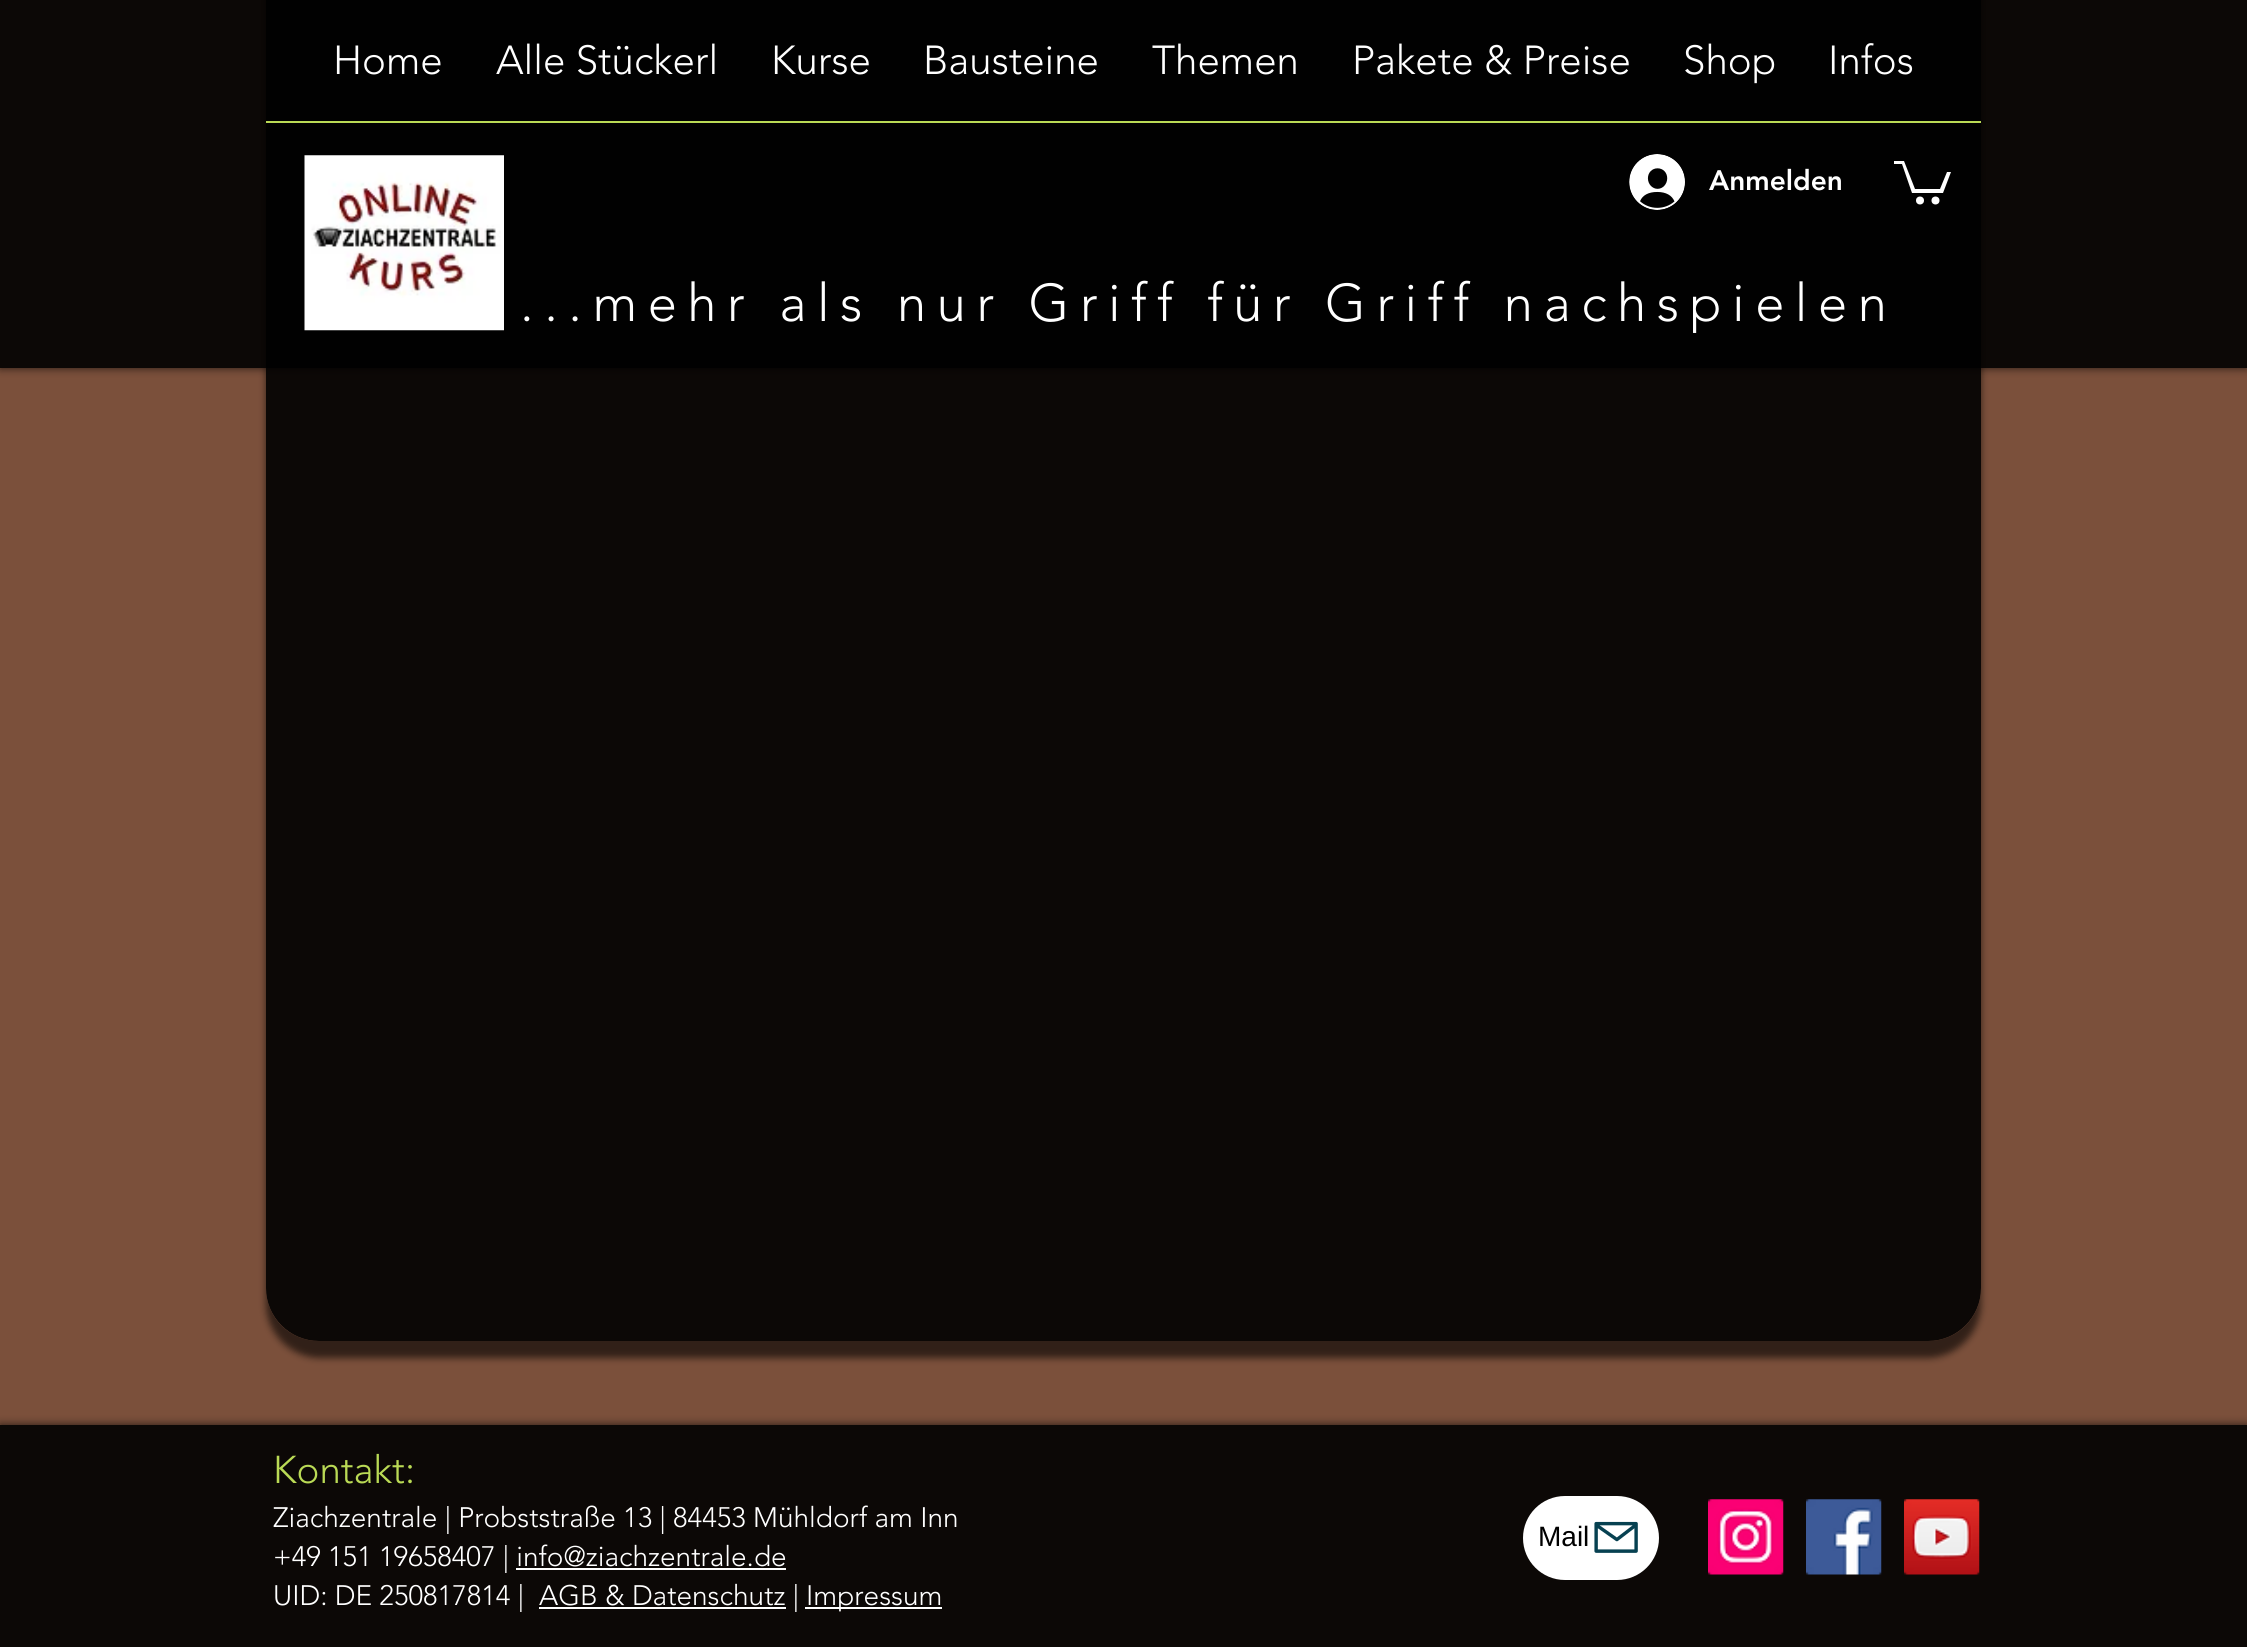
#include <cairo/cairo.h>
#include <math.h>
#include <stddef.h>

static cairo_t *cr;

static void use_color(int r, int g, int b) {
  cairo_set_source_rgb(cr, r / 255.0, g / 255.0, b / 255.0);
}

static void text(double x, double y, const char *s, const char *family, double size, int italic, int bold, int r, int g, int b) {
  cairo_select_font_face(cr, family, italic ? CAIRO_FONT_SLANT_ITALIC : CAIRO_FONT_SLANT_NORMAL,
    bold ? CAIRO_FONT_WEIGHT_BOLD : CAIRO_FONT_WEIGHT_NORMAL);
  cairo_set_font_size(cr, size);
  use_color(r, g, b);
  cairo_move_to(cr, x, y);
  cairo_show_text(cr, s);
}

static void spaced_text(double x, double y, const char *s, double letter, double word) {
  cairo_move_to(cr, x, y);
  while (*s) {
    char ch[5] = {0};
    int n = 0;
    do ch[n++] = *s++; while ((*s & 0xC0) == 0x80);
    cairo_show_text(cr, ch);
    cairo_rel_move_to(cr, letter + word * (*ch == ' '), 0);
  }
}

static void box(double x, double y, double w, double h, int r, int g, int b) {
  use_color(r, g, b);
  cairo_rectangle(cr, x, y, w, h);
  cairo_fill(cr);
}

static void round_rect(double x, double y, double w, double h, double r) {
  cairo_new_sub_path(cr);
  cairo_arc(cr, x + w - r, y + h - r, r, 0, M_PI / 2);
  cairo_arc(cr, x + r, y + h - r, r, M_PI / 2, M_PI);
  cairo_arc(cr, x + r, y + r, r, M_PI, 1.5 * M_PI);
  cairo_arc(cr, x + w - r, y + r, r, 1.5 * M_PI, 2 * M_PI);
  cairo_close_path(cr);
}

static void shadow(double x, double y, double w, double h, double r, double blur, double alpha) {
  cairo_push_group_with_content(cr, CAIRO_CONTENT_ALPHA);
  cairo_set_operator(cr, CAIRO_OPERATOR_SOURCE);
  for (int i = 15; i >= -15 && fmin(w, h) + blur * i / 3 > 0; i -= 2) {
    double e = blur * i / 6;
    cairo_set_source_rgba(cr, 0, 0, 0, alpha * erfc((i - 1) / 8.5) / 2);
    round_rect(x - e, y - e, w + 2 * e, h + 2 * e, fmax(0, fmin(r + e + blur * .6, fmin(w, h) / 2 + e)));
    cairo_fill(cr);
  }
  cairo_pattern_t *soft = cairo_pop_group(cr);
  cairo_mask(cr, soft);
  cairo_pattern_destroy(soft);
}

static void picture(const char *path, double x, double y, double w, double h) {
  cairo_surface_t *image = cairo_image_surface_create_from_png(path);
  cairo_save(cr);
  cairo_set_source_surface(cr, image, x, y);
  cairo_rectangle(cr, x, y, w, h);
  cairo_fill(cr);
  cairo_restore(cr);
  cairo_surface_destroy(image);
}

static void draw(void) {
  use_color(123, 80, 59);
  cairo_paint(cr);
  cairo_save(cr);
  cairo_set_fill_rule(cr, CAIRO_FILL_RULE_EVEN_ODD);
  cairo_new_path(cr);
  cairo_move_to(cr, 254, 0);
  cairo_line_to(cr, 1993, 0);
  cairo_line_to(cr, 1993, 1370);
  cairo_line_to(cr, 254, 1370);
  cairo_close_path(cr);
  cairo_move_to(cr, 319, -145);
  cairo_line_to(cr, 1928, -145);
  cairo_curve_to(cr, 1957.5, -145, 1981, -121.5, 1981, -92);
  cairo_line_to(cr, 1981, 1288);
  cairo_curve_to(cr, 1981, 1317.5, 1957.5, 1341, 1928, 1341);
  cairo_line_to(cr, 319, 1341);
  cairo_curve_to(cr, 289.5, 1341, 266, 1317.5, 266, 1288);
  cairo_line_to(cr, 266, -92);
  cairo_curve_to(cr, 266, -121.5, 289.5, -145, 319, -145);
  cairo_close_path(cr);
  cairo_clip(cr);
  use_color(0, 0, 0);
  shadow(266, -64, 1715, 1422, 53, 3.5, 0.6);
  cairo_restore(cr);
  cairo_set_source_rgba(cr, 0, 0, 0, 0.9);
  round_rect(266, -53, 1715, 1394, 53);
  cairo_fill(cr);
  cairo_save(cr);
  cairo_set_fill_rule(cr, CAIRO_FILL_RULE_EVEN_ODD);
  cairo_new_path(cr);
  cairo_move_to(cr, 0, 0);
  cairo_line_to(cr, 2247, 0);
  cairo_line_to(cr, 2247, 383);
  cairo_line_to(cr, 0, 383);
  cairo_close_path(cr);
  cairo_move_to(cr, 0, 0);
  cairo_line_to(cr, 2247, 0);
  cairo_line_to(cr, 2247, 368);
  cairo_line_to(cr, 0, 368);
  cairo_close_path(cr);
  cairo_clip(cr);
  use_color(0, 0, 0);
  shadow(0, 0, 2247, 368, 0, 4.5, 0.7);
  cairo_restore(cr);
  cairo_rectangle(cr, 0, 0, 2247, 368);
  cairo_fill(cr);
  box(266, 121, 1715, 2, 186, 218, 85);
  picture("img_01.png", 304, 155, 200, 176);
  picture("img_02.png", 1629, 154, 56, 56);
  use_color(255, 255, 255);
  cairo_new_path(cr);
  cairo_move_to(cr, 1951, 172);
  cairo_line_to(cr, 1943, 193);
  cairo_line_to(cr, 1912, 193);
  cairo_line_to(cr, 1902, 164);
  cairo_line_to(cr, 1894, 164);
  cairo_line_to(cr, 1894, 161);
  cairo_line_to(cr, 1904, 161);
  cairo_line_to(cr, 1915, 189);
  cairo_line_to(cr, 1940, 189);
  cairo_line_to(cr, 1947, 172);
  cairo_fill(cr);
  cairo_arc(cr, 1935.5, 200.5, 4, 0, 2 * M_PI);
  cairo_fill(cr);
  cairo_arc(cr, 1920, 200.5, 4, 0, 2 * M_PI);
  cairo_fill(cr);
  use_color(0, 0, 0);
  shadow(0, 1425, 2247, 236, 0, 4.5, 0.7);
  box(0, 1425, 2247, 222, 12, 8, 6);
  box(516, 1568, 270, 2, 255, 255, 255);
  box(539, 1607, 247, 2, 255, 255, 255);
  box(805, 1607, 137, 2, 255, 255, 255);
  round_rect(1523, 1496, 136, 84, 42);
  cairo_fill(cr);
  picture("img_03.png", 1594, 1521, 44, 32);
  picture("img_04.png", 1708, 1499, 76, 76);
  picture("img_05.png", 1806, 1499, 76, 76);
  picture("img_06.png", 1904, 1499, 76, 76);
  text(333, 74, "Home", "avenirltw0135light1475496 Light", 40.25, 0, 0, 255, 255, 255);
  text(496, 74, "Alle Stückerl", "avenirltw0135light1475496 Light", 40.25, 0, 0, 255, 255, 255);
  text(771, 74, "Kurse", "avenirltw0135light1475496 Light", 40.25, 0, 0, 255, 255, 255);
  text(923, 74, "Bausteine", "avenirltw0135light1475496 Light", 40.25, 0, 0, 255, 255, 255);
  text(1152, 74, "Themen", "avenirltw0135light1475496 Light", 40.25, 0, 0, 255, 255, 255);
  text(1352, 74, "Pakete & Preise", "avenirltw0135light1475496 Light", 40.25, 0, 0, 255, 255, 255);
  text(1683, 74, "Shop", "avenirltw0135light1475496 Light", 40.25, 0, 0, 255, 255, 255);
  text(1828, 74, "Infos", "avenirltw0135light1475496 Light", 40.25, 0, 0, 255, 255, 255);
  text(1709, 190, "Anmelden", "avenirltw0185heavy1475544 Black", 28, 0, 0, 255, 255, 255);
  cairo_select_font_face(cr, "avenirltw0135light1475496 Light", CAIRO_FONT_SLANT_NORMAL, CAIRO_FONT_WEIGHT_NORMAL);
  cairo_set_font_size(cr, 52.5);
  spaced_text(520, 321, "...mehr als nur Griff für Griff nachspielen", 10.5, 0);
  text(273, 1483, "Kontakt:", "avenirltw0135light1475496 Light", 38.5, 0, 0, 186, 218, 85);
  text(273, 1527, "Ziachzentrale | Probststraße 13 | 84453 Mühldorf am Inn", "avenirltw0135light1475496 Light", 28, 0, 0, 255, 255, 255);
  text(273, 1566, "+49 151 19658407 | info@ziachzentrale.de", "avenirltw0135light1475496 Light", 28, 0, 0, 255, 255, 255);
  text(273, 1605, "UID: DE 250817814 |", "avenirltw0135light1475496 Light", 28, 0, 0, 255, 255, 255);
  text(539, 1605, "AGB & Datenschutz |", "avenirltw0135light1475496 Light", 28, 0, 0, 255, 255, 255);
  text(806, 1605, "Impressum", "avenirltw0135light1475496 Light", 28, 0, 0, 255, 255, 255);
  text(1538, 1546, "Mail", "Liberation Sans", 28, 0, 0, 0, 0, 0);
}

int main(void) {
  cairo_surface_t *surface = cairo_image_surface_create(CAIRO_FORMAT_RGB24, 2247, 1647);
  cr = cairo_create(surface);
  cairo_font_options_t *options = cairo_font_options_create();
  cairo_font_options_set_hint_metrics(options, CAIRO_HINT_METRICS_OFF);
  cairo_font_options_set_hint_style(options, CAIRO_HINT_STYLE_NONE);
  cairo_set_font_options(cr, options);
  cairo_set_miter_limit(cr, 4);
  draw();
  cairo_surface_write_to_png(surface, "out.png");
  cairo_font_options_destroy(options);
  cairo_destroy(cr);
  cairo_surface_destroy(surface);
  return 0;
}
